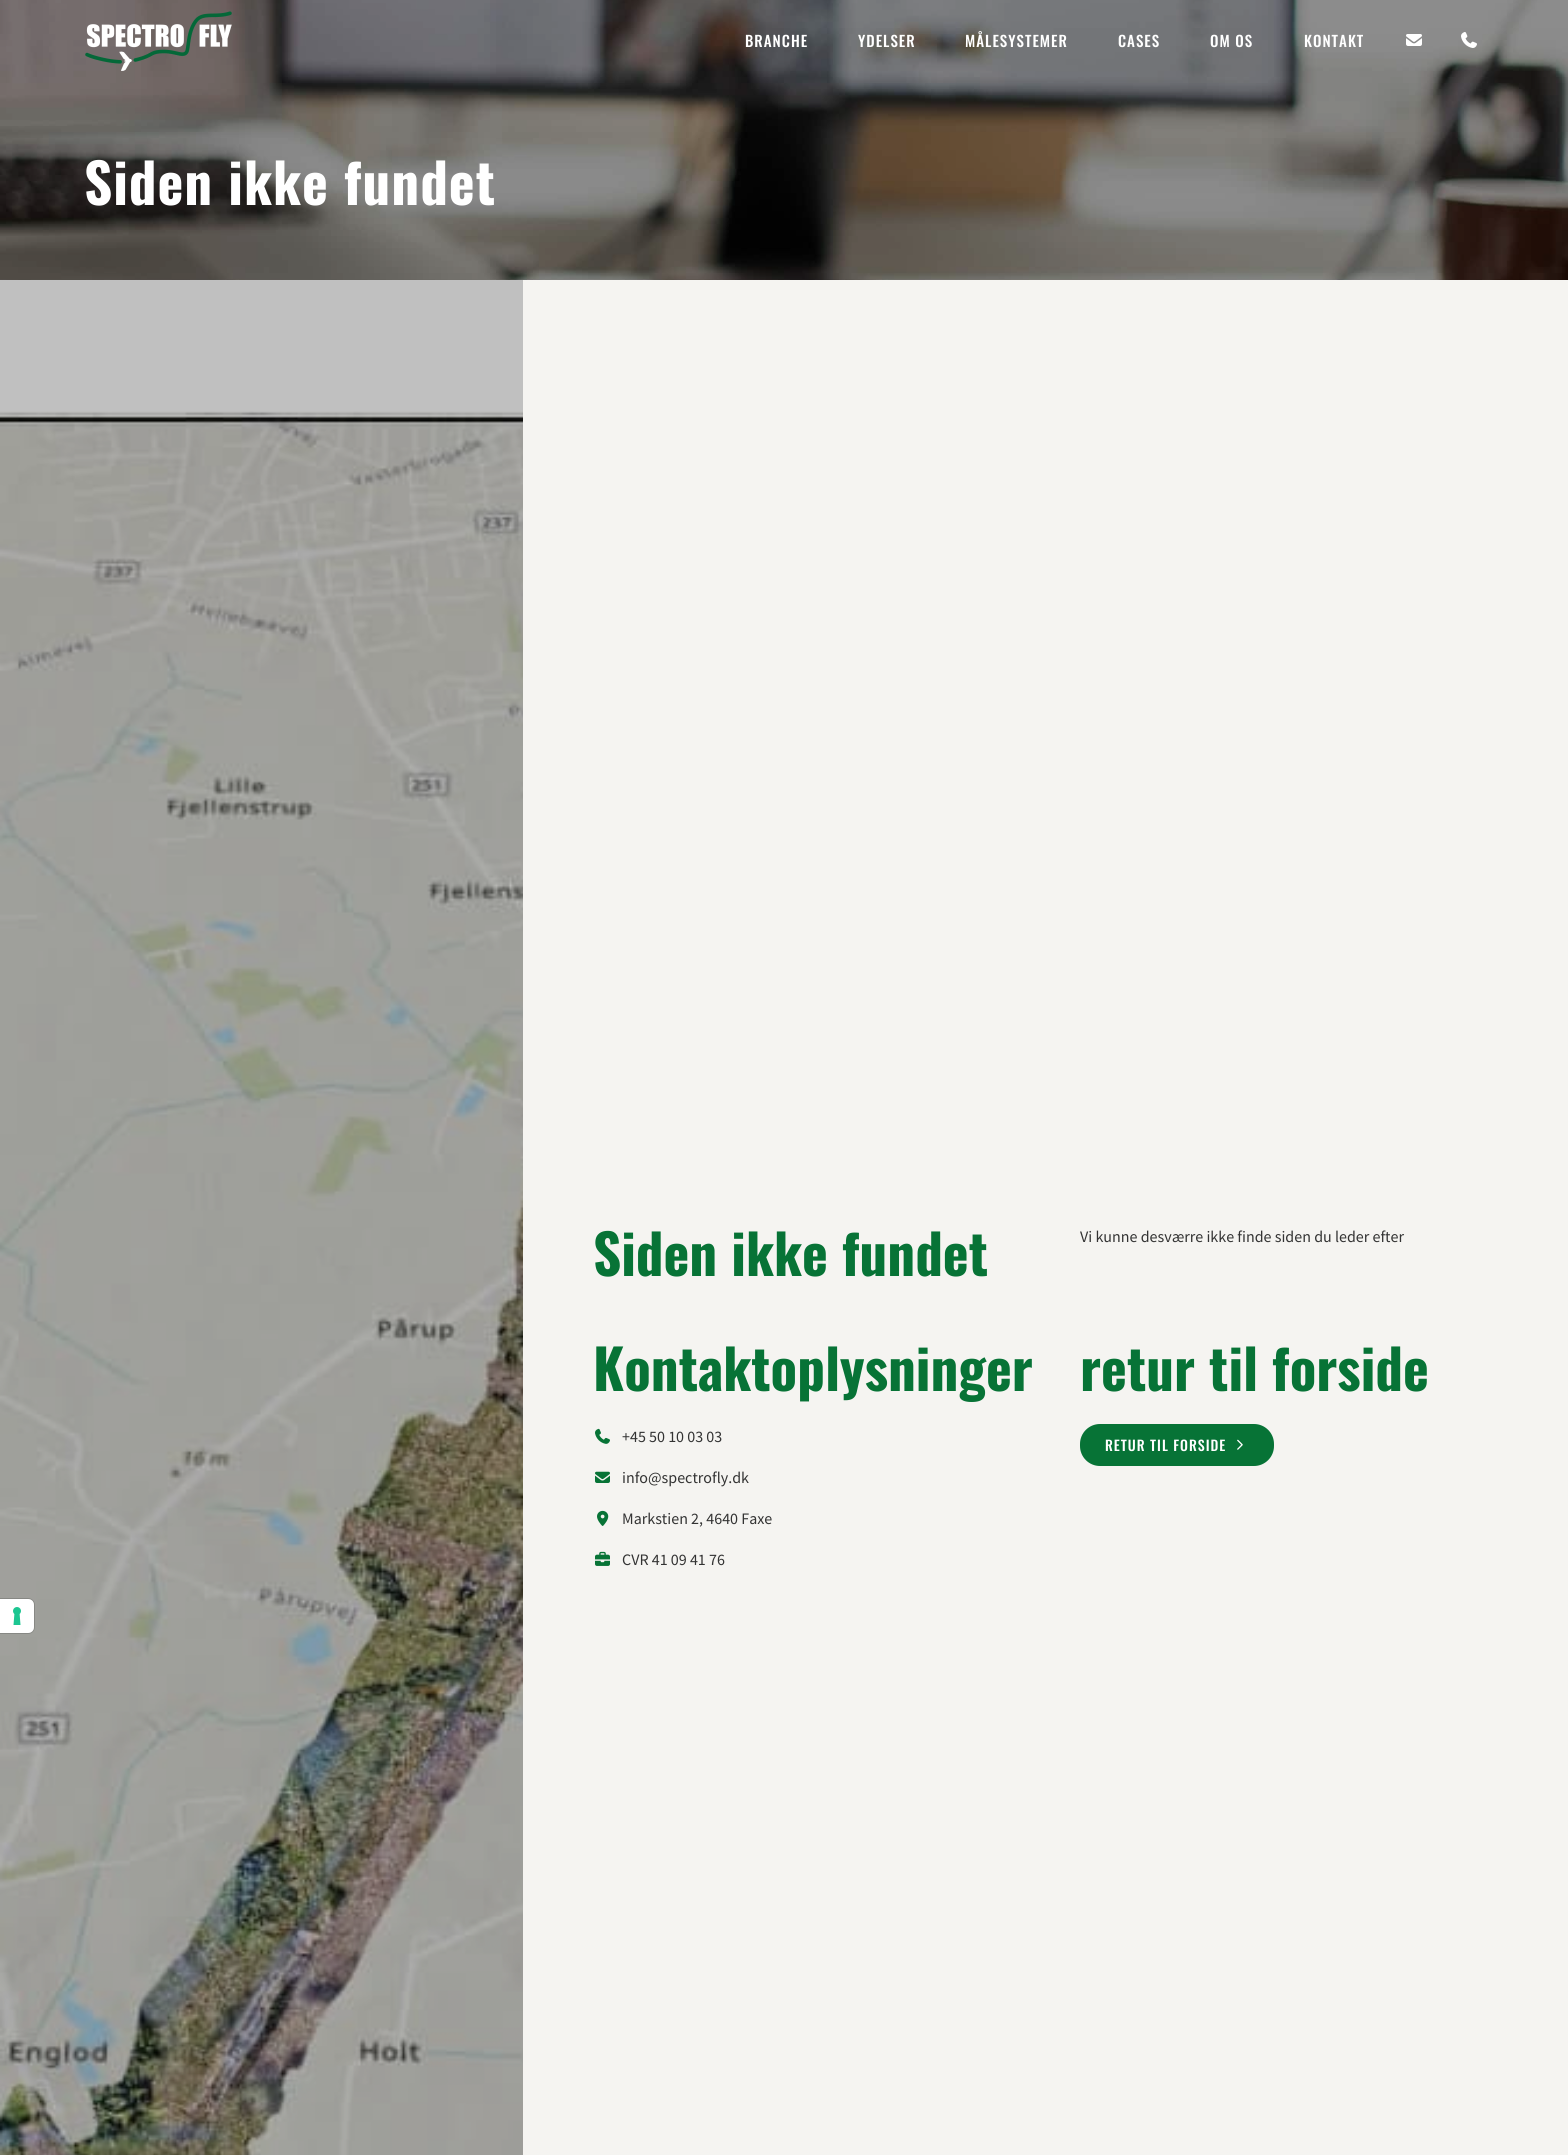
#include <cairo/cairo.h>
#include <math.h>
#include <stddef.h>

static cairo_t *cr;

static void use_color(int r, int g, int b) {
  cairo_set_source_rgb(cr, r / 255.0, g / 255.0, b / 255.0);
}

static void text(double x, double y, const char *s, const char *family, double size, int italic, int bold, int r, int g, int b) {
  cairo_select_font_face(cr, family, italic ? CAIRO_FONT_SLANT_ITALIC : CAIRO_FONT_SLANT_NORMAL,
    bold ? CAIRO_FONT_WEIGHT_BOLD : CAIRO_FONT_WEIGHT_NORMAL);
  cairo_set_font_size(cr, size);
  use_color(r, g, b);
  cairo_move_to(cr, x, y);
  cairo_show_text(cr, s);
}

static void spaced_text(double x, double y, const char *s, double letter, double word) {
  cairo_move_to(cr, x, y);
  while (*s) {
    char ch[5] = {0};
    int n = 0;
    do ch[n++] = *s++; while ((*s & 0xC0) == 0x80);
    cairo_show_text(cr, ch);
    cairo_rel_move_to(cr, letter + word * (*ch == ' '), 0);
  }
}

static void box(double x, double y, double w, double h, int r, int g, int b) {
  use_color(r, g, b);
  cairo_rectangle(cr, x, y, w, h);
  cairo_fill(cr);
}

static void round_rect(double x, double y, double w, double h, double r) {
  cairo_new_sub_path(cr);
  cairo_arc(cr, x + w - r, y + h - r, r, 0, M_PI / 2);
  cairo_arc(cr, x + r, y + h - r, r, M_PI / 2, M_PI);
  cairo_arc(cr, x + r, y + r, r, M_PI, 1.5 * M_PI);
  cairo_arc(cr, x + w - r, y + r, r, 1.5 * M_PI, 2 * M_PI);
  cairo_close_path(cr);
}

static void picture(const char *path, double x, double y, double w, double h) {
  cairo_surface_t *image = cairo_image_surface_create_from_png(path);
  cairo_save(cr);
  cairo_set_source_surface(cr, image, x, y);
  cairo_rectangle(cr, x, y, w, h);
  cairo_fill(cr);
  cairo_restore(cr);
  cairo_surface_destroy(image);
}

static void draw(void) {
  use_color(192, 192, 192);
  cairo_paint(cr);
  picture("img_04.png", 0, 0, 1568, 280);
  picture("img_01.png", 85, 11, 147, 60);
  picture("img_02.png", 1406, 34, 16, 12);
  picture("img_03.png", 1461, 32, 16, 16);
  picture("img_05.png", 0, 411, 523, 1744);
  box(523, 280, 1045, 1875, 245, 244, 241);
  picture("img_06.png", 595, 1428, 15, 16);
  picture("img_07.png", 595, 1471, 15, 12);
  picture("img_08.png", 597, 1510, 12, 16);
  picture("img_09.png", 595, 1551, 15, 15);
  use_color(7, 115, 54);
  round_rect(1080, 1424, 194, 42, 20);
  cairo_fill(cr);
  picture("img_10.png", 1237, 1439, 6, 11);
  cairo_new_path(cr);
  cairo_move_to(cr, -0.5, 1598.5);
  cairo_line_to(cr, 28, 1598.5);
  cairo_curve_to(cr, 31.5, 1598.5, 34.5, 1601.5, 34.5, 1605);
  cairo_line_to(cr, 34.5, 1627);
  cairo_curve_to(cr, 34.5, 1630.5, 31.5, 1633.5, 28, 1633.5);
  cairo_line_to(cr, -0.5, 1633.5);
  cairo_close_path(cr);
  use_color(135, 136, 132);
  cairo_set_line_width(cr, 1);
  cairo_stroke(cr);
  use_color(255, 255, 255);
  cairo_new_path(cr);
  cairo_move_to(cr, 0, 1599);
  cairo_line_to(cr, 28, 1599);
  cairo_curve_to(cr, 31.5, 1599, 34, 1601.5, 34, 1605);
  cairo_line_to(cr, 34, 1627);
  cairo_curve_to(cr, 34, 1630.5, 31.5, 1633, 28, 1633);
  cairo_line_to(cr, 0, 1633);
  cairo_close_path(cr);
  cairo_fill(cr);
  picture("img_11.png", 13, 1607, 8, 18);
  cairo_select_font_face(cr, "Oswald Medium", CAIRO_FONT_SLANT_NORMAL, CAIRO_FONT_WEIGHT_NORMAL);
  cairo_set_font_size(cr, 15);
  spaced_text(745, 47, "BRANCHE", 1, 0);
  spaced_text(858, 47, "YDELSER", 1, 0);
  spaced_text(965, 47, "MÅLESYSTEMER", 1, 0);
  spaced_text(1118, 47, "CASES", 1, 0);
  spaced_text(1210, 47, "OM OS", 1, 0);
  spaced_text(1304, 47, "KONTAKT", 1, 0);
  cairo_select_font_face(cr, "Oswald", CAIRO_FONT_SLANT_NORMAL, CAIRO_FONT_WEIGHT_BOLD);
  cairo_set_font_size(cr, 55);
  spaced_text(84, 205, "Siden ikke fundet", 1, 0);
  text(593, 1276, "Siden ikke fundet", "Oswald", 55, 0, 1, 7, 115, 54);
  text(1080, 1242, "Vi kunne desværre ikke finde siden du leder efter", "Source Sans Pro", 16, 0, 0, 51, 51, 51);
  text(593, 1391, "Kontaktoplysninger", "Oswald", 55, 0, 1, 7, 115, 54);
  text(622, 1442, "+45 50 10 03 03", "Source Sans Pro", 16, 0, 0, 51, 51, 51);
  text(622, 1483, "info@spectrofly.dk", "Source Sans Pro", 16, 0, 0, 51, 51, 51);
  text(622, 1524, "Markstien 2, 4640 Faxe", "Source Sans Pro", 16, 0, 0, 51, 51, 51);
  text(622, 1565, "CVR 41 09 41 76", "Source Sans Pro", 16, 0, 0, 51, 51, 51);
  text(1080, 1391, "retur til forside", "Oswald", 55, 0, 1, 7, 115, 54);
  cairo_select_font_face(cr, "Oswald Medium", CAIRO_FONT_SLANT_NORMAL, CAIRO_FONT_WEIGHT_NORMAL);
  cairo_set_font_size(cr, 14);
  use_color(255, 255, 255);
  spaced_text(1105, 1451, "RETUR TIL FORSIDE", 1, 0);
}

int main(void) {
  cairo_surface_t *surface = cairo_image_surface_create(CAIRO_FORMAT_RGB24, 1568, 2155);
  cr = cairo_create(surface);
  cairo_font_options_t *options = cairo_font_options_create();
  cairo_font_options_set_hint_metrics(options, CAIRO_HINT_METRICS_OFF);
  cairo_font_options_set_hint_style(options, CAIRO_HINT_STYLE_NONE);
  cairo_set_font_options(cr, options);
  cairo_set_miter_limit(cr, 4);
  draw();
  cairo_surface_write_to_png(surface, "out.png");
  cairo_font_options_destroy(options);
  cairo_destroy(cr);
  cairo_surface_destroy(surface);
  return 0;
}
